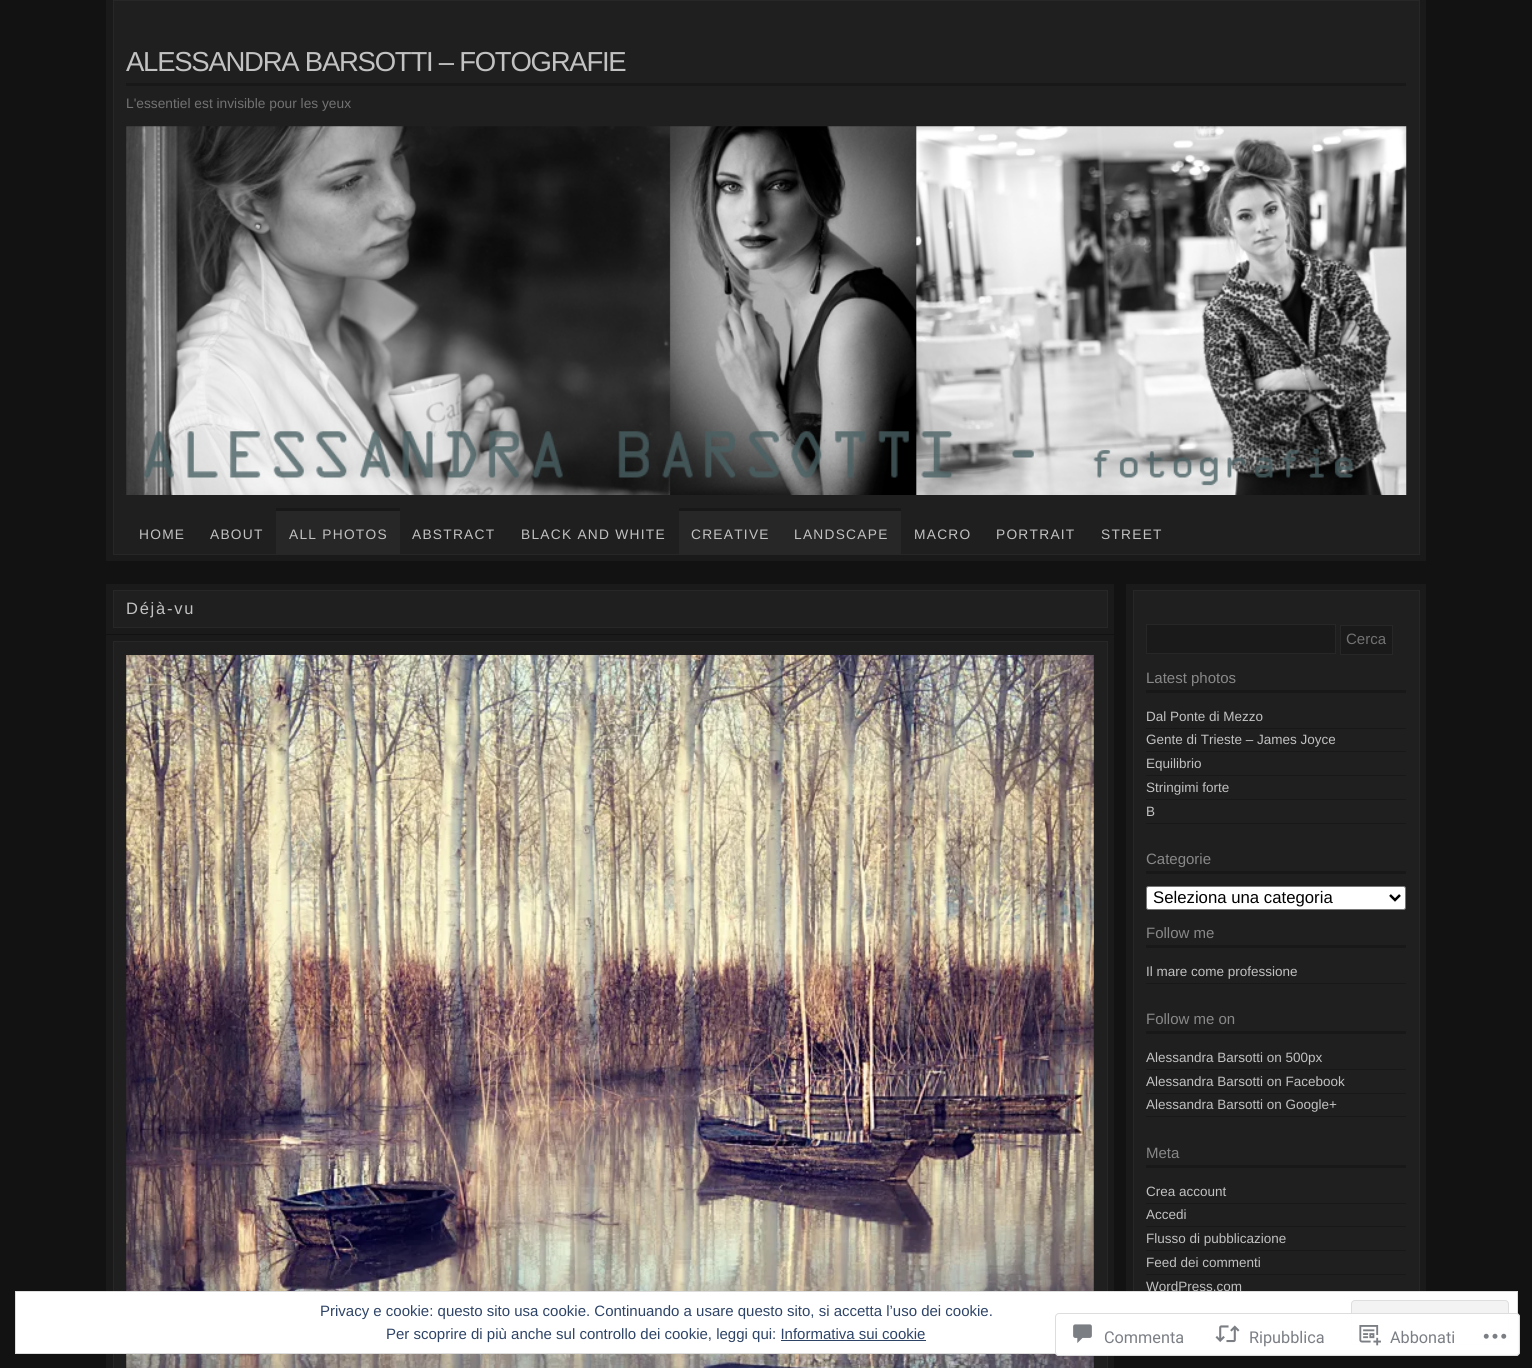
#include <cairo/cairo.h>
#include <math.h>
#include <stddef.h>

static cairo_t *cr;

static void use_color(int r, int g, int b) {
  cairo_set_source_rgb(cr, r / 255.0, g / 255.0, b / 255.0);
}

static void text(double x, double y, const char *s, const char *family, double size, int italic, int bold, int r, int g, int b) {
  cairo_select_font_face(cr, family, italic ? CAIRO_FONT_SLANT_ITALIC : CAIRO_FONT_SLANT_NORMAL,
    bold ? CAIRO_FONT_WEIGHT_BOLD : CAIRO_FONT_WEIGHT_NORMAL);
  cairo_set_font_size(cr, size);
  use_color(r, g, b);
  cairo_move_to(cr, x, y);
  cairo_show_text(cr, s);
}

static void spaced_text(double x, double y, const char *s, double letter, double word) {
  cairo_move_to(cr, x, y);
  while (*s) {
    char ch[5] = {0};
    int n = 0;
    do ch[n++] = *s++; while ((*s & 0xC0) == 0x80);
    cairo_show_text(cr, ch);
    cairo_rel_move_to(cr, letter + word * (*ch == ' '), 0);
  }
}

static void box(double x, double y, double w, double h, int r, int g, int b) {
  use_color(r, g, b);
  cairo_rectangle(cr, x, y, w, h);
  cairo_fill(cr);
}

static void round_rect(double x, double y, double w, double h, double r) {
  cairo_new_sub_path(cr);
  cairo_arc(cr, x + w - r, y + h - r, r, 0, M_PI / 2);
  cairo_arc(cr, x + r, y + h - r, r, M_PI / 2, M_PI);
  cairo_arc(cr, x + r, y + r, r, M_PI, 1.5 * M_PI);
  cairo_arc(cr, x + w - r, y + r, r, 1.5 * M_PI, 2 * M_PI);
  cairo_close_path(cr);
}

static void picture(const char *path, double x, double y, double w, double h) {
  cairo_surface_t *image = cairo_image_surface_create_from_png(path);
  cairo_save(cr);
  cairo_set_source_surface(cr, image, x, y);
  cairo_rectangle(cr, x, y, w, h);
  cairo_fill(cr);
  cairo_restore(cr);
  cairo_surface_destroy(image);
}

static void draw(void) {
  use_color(18, 18, 18);
  cairo_paint(cr);
  box(106, 0, 1320, 561, 26, 26, 26);
  use_color(31, 31, 31);
  cairo_rectangle(cr, 113.5, 0.5, 1306, 554);
  cairo_fill_preserve(cr);
  use_color(39, 39, 39);
  cairo_set_line_width(cr, 1);
  cairo_stroke(cr);
  box(126, 83, 1280, 3, 24, 24, 24);
  picture("img_01.png", 126, 126, 1281, 369);
  box(276, 511, 124, 43, 39, 39, 39);
  box(276, 508, 124, 3, 24, 24, 24);
  box(679, 511, 222, 43, 39, 39, 39);
  box(679, 508, 222, 3, 24, 24, 24);
  box(106, 584, 1008, 50, 26, 26, 26);
  use_color(31, 31, 31);
  cairo_rectangle(cr, 113.5, 590.5, 994, 37);
  cairo_fill_preserve(cr);
  use_color(39, 39, 39);
  cairo_stroke(cr);
  box(106, 635, 1008, 733, 26, 26, 26);
  use_color(31, 31, 31);
  cairo_rectangle(cr, 113.5, 641.5, 994, 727);
  cairo_fill_preserve(cr);
  use_color(39, 39, 39);
  cairo_stroke(cr);
  picture("img_02.png", 126, 655, 968, 713);
  box(1126, 584, 300, 707, 26, 26, 26);
  box(1134, 591, 285, 700, 31, 31, 31);
  cairo_rectangle(cr, 1133.5, 590.5, 286, 747);
  use_color(39, 39, 39);
  cairo_stroke(cr);
  use_color(26, 26, 26);
  cairo_rectangle(cr, 1146.5, 624.5, 189, 29);
  cairo_fill_preserve(cr);
  use_color(39, 39, 39);
  cairo_stroke(cr);
  use_color(26, 26, 26);
  cairo_rectangle(cr, 1340.5, 625.5, 52, 29);
  cairo_fill_preserve(cr);
  use_color(39, 39, 39);
  cairo_stroke(cr);
  box(1146, 690, 260, 3, 24, 24, 24);
  box(1146, 728, 260, 1, 24, 24, 24);
  box(1146, 751, 260, 1, 24, 24, 24);
  box(1146, 775, 260, 1, 24, 24, 24);
  box(1146, 799, 260, 1, 24, 24, 24);
  box(1146, 823, 260, 1, 24, 24, 24);
  box(1146, 871, 260, 3, 24, 24, 24);
  use_color(255, 255, 255);
  round_rect(1146.5, 886.5, 259, 23, 2);
  cairo_fill_preserve(cr);
  use_color(118, 118, 118);
  cairo_stroke(cr);
  cairo_new_path(cr);
  cairo_move_to(cr, 1390, 895);
  cairo_line_to(cr, 1395, 900);
  cairo_line_to(cr, 1400, 895);
  use_color(0, 0, 0);
  cairo_set_line_width(cr, 2.5);
  cairo_stroke(cr);
  box(1146, 945, 260, 3, 24, 24, 24);
  box(1146, 983, 260, 1, 24, 24, 24);
  box(1146, 1031, 260, 3, 24, 24, 24);
  box(1146, 1069, 260, 1, 24, 24, 24);
  box(1146, 1093, 260, 1, 24, 24, 24);
  box(1146, 1116, 260, 1, 24, 24, 24);
  box(1146, 1165, 260, 3, 24, 24, 24);
  box(1146, 1203, 260, 1, 24, 24, 24);
  box(1146, 1226, 260, 1, 24, 24, 24);
  box(1146, 1250, 260, 1, 24, 24, 24);
  box(1146, 1274, 260, 1, 24, 24, 24);
  cairo_select_font_face(cr, "Liberation Sans", CAIRO_FONT_SLANT_NORMAL, CAIRO_FONT_WEIGHT_NORMAL);
  cairo_set_font_size(cr, 27.5);
  use_color(194, 194, 194);
  spaced_text(126, 71, "ALESSANDRA BARSOTTI – FOTOGRAFIE", -1.25, 0);
  text(126, 108, "L'essentiel est invisible pour les yeux", "Liberation Sans", 13.75, 0, 0, 114, 114, 114);
  use_color(194, 194, 194);
  spaced_text(139, 539, "HOME", 1.25, 0);
  spaced_text(210, 539, "ABOUT", 1.25, 0);
  spaced_text(289, 539, "ALL PHOTOS", 1.25, 0);
  spaced_text(412, 539, "ABSTRACT", 1.25, 0);
  spaced_text(521, 539, "BLACK AND WHITE", 1.25, 0);
  spaced_text(691, 539, "CREATIVE", 1.25, 0);
  spaced_text(794, 539, "LANDSCAPE", 1.25, 0);
  spaced_text(914, 539, "MACRO", 1.25, 0);
  spaced_text(996, 539, "PORTRAIT", 1.25, 0);
  spaced_text(1101, 539, "STREET", 1.25, 0);
  cairo_set_font_size(cr, 16.5);
  spaced_text(126, 614, "Déjà-vu", 1.75, 0);
  text(1346, 644, "Cerca", "Liberation Sans", 15, 0, 0, 114, 114, 114);
  text(1146, 683, "Latest photos", "Liberation Sans", 15, 0, 0, 136, 136, 136);
  text(1146, 721, "Dal Ponte di Mezzo", "Liberation Sans", 13.5, 0, 0, 194, 194, 194);
  text(1146, 744, "Gente di Trieste – James Joyce", "Liberation Sans", 13.5, 0, 0, 194, 194, 194);
  text(1146, 768, "Equilibrio", "Liberation Sans", 13.5, 0, 0, 194, 194, 194);
  text(1146, 792, "Stringimi forte", "Liberation Sans", 13.5, 0, 0, 194, 194, 194);
  text(1146, 816, "B", "Liberation Sans", 13.5, 0, 0, 194, 194, 194);
  text(1146, 864, "Categorie", "Liberation Sans", 15, 0, 0, 136, 136, 136);
  text(1153, 903, "Seleziona una categoria", "Liberation Sans", 16.75, 0, 0, 0, 0, 0);
  text(1146, 938, "Follow me", "Liberation Sans", 15, 0, 0, 136, 136, 136);
  text(1146, 976, "Il mare come professione", "Liberation Sans", 13.5, 0, 0, 194, 194, 194);
  text(1146, 1024, "Follow me on", "Liberation Sans", 15, 0, 0, 136, 136, 136);
  text(1146, 1062, "Alessandra Barsotti on 500px", "Liberation Sans", 13.5, 0, 0, 194, 194, 194);
  text(1146, 1086, "Alessandra Barsotti on Facebook", "Liberation Sans", 13.5, 0, 0, 194, 194, 194);
  text(1146, 1109, "Alessandra Barsotti on Google+", "Liberation Sans", 13.5, 0, 0, 194, 194, 194);
  text(1146, 1158, "Meta", "Liberation Sans", 15, 0, 0, 136, 136, 136);
  text(1146, 1196, "Crea account", "Liberation Sans", 13.5, 0, 0, 194, 194, 194);
  text(1146, 1219, "Accedi", "Liberation Sans", 13.5, 0, 0, 194, 194, 194);
  text(1146, 1243, "Flusso di pubblicazione", "Liberation Sans", 13.5, 0, 0, 194, 194, 194);
  text(1146, 1267, "Feed dei commenti", "Liberation Sans", 13.5, 0, 0, 194, 194, 194);
  text(1146, 1291, "WordPress.com", "Liberation Sans", 13.5, 0, 0, 194, 194, 194);
  use_color(255, 255, 255);
  cairo_rectangle(cr, 15.5, 1291.5, 1502, 62);
  cairo_fill_preserve(cr);
  use_color(222, 222, 222);
  cairo_set_line_width(cr, 1);
  cairo_stroke(cr);
  text(320, 1316, "Privacy e cookie: questo sito usa cookie. Continuando a usare questo sito, si accetta l’uso dei cookie.", "Liberation Sans", 15, 0, 0, 46, 68, 103);
  use_color(243, 243, 243);
  round_rect(1351.5, 1300.5, 157, 44, 3.5);
  cairo_fill_preserve(cr);
  use_color(222, 222, 222);
  cairo_stroke(cr);
  text(386, 1339, "Per scoprire di più anche sul controllo dei cookie, leggi qui: Informativa sui cookie", "Liberation Sans", 15, 0, 0, 46, 68, 103);
  box(781, 1340, 145, 1, 46, 68, 103);
  cairo_set_source_rgba(cr, 1, 1, 1, 0.98);
  round_rect(1055, 1313, 465, 43, 4);
  cairo_fill(cr);
  round_rect(1055.5, 1313.5, 464, 42, 3.5);
  cairo_set_source_rgba(cr, 0.863, 0.863, 0.871, 0.98);
  cairo_stroke(cr);
  picture("img_03.png", 1073, 1324, 19, 19);
  text(1104, 1343, "Commenta", "Roboto", 16.25, 0, 0, 123, 127, 133);
  picture("img_04.png", 1215, 1325, 25, 18);
  text(1249, 1343, "Ripubblica", "Roboto", 16.25, 0, 0, 123, 127, 133);
  picture("img_05.png", 1359, 1325, 22, 21);
  text(1390, 1343, "Abbonati", "Roboto", 16.25, 0, 0, 123, 127, 133);
  picture("img_06.png", 1483, 1333, 24, 6);
}

int main(void) {
  cairo_surface_t *surface = cairo_image_surface_create(CAIRO_FORMAT_RGB24, 1532, 1368);
  cr = cairo_create(surface);
  cairo_font_options_t *options = cairo_font_options_create();
  cairo_font_options_set_hint_metrics(options, CAIRO_HINT_METRICS_OFF);
  cairo_font_options_set_hint_style(options, CAIRO_HINT_STYLE_NONE);
  cairo_set_font_options(cr, options);
  cairo_set_miter_limit(cr, 4);
  draw();
  cairo_surface_write_to_png(surface, "out.png");
  cairo_font_options_destroy(options);
  cairo_destroy(cr);
  cairo_surface_destroy(surface);
  return 0;
}
